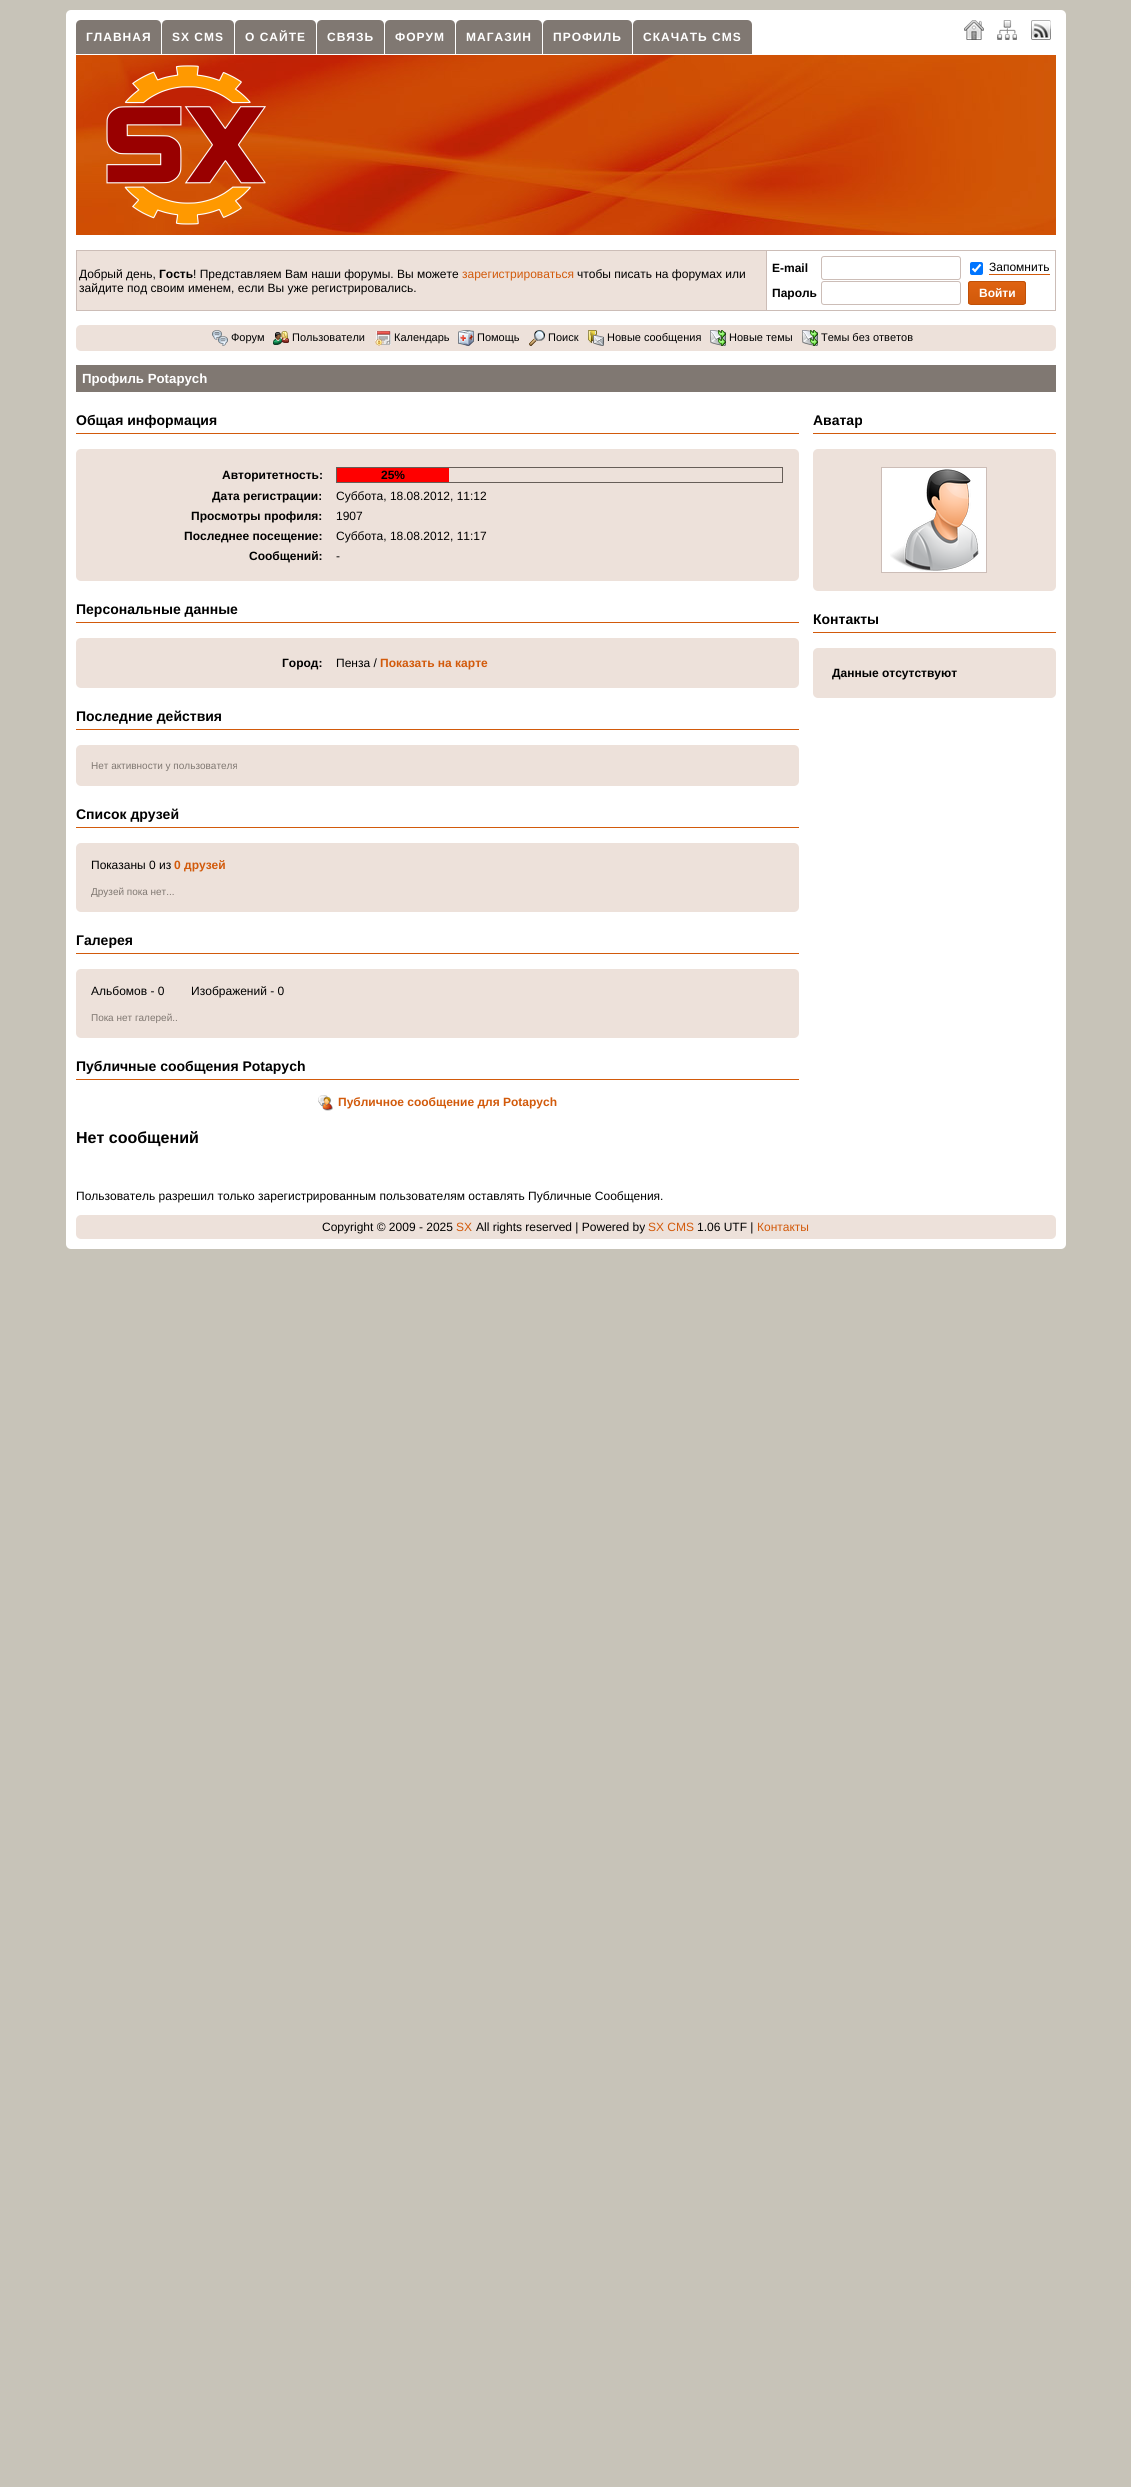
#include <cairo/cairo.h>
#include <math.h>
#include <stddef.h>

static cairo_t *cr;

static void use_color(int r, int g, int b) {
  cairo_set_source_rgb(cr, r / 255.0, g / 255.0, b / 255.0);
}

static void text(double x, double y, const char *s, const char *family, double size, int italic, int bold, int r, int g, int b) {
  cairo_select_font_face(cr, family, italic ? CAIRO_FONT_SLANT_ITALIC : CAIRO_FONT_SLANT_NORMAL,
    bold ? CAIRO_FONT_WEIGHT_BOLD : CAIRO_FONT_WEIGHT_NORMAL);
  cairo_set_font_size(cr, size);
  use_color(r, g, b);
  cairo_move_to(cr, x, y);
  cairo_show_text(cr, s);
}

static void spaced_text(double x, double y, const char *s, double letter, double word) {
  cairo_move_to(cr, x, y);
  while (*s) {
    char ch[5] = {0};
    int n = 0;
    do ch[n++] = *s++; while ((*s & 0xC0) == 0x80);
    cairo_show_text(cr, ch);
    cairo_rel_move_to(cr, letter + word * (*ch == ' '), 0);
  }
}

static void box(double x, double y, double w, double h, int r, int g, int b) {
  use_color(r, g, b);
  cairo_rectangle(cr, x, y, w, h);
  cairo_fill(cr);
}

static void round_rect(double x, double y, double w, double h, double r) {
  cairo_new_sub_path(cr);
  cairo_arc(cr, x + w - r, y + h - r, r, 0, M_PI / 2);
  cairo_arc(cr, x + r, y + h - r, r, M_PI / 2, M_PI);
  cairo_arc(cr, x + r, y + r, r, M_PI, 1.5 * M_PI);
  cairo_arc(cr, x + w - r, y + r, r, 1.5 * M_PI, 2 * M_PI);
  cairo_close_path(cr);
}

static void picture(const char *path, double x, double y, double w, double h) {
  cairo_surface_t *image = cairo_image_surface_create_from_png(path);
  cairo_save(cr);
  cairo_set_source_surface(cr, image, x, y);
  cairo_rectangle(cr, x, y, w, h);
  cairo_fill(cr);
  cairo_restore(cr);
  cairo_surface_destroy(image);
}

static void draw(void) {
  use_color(199, 195, 184);
  cairo_paint(cr);
  use_color(255, 255, 255);
  round_rect(66, 10, 1000, 1239, 5);
  cairo_fill(cr);
  use_color(128, 120, 114);
  cairo_new_path(cr);
  cairo_move_to(cr, 81, 20);
  cairo_line_to(cr, 156, 20);
  cairo_curve_to(cr, 159, 20, 161, 22, 161, 25);
  cairo_line_to(cr, 161, 55);
  cairo_line_to(cr, 76, 55);
  cairo_line_to(cr, 76, 25);
  cairo_curve_to(cr, 76, 22, 78, 20, 81, 20);
  cairo_close_path(cr);
  cairo_fill(cr);
  box(76, 54, 85, 1, 255, 255, 255);
  use_color(128, 120, 114);
  cairo_new_path(cr);
  cairo_move_to(cr, 167, 20);
  cairo_line_to(cr, 229, 20);
  cairo_curve_to(cr, 232, 20, 234, 22, 234, 25);
  cairo_line_to(cr, 234, 55);
  cairo_line_to(cr, 162, 55);
  cairo_line_to(cr, 162, 25);
  cairo_curve_to(cr, 162, 22, 164, 20, 167, 20);
  cairo_close_path(cr);
  cairo_fill(cr);
  box(162, 54, 72, 1, 255, 255, 255);
  use_color(128, 120, 114);
  cairo_new_path(cr);
  cairo_move_to(cr, 240, 20);
  cairo_line_to(cr, 311, 20);
  cairo_curve_to(cr, 314, 20, 316, 22, 316, 25);
  cairo_line_to(cr, 316, 55);
  cairo_line_to(cr, 235, 55);
  cairo_line_to(cr, 235, 25);
  cairo_curve_to(cr, 235, 22, 237, 20, 240, 20);
  cairo_close_path(cr);
  cairo_fill(cr);
  box(235, 54, 81, 1, 255, 255, 255);
  use_color(128, 120, 114);
  cairo_new_path(cr);
  cairo_move_to(cr, 322, 20);
  cairo_line_to(cr, 379, 20);
  cairo_curve_to(cr, 382, 20, 384, 22, 384, 25);
  cairo_line_to(cr, 384, 55);
  cairo_line_to(cr, 317, 55);
  cairo_line_to(cr, 317, 25);
  cairo_curve_to(cr, 317, 22, 319, 20, 322, 20);
  cairo_close_path(cr);
  cairo_fill(cr);
  box(317, 54, 67, 1, 255, 255, 255);
  use_color(128, 120, 114);
  cairo_new_path(cr);
  cairo_move_to(cr, 390, 20);
  cairo_line_to(cr, 450, 20);
  cairo_curve_to(cr, 453, 20, 455, 22, 455, 25);
  cairo_line_to(cr, 455, 55);
  cairo_line_to(cr, 385, 55);
  cairo_line_to(cr, 385, 25);
  cairo_curve_to(cr, 385, 22, 387, 20, 390, 20);
  cairo_close_path(cr);
  cairo_fill(cr);
  box(385, 54, 70, 1, 255, 255, 255);
  use_color(128, 120, 114);
  cairo_new_path(cr);
  cairo_move_to(cr, 461, 20);
  cairo_line_to(cr, 537, 20);
  cairo_curve_to(cr, 540, 20, 542, 22, 542, 25);
  cairo_line_to(cr, 542, 55);
  cairo_line_to(cr, 456, 55);
  cairo_line_to(cr, 456, 25);
  cairo_curve_to(cr, 456, 22, 458, 20, 461, 20);
  cairo_close_path(cr);
  cairo_fill(cr);
  box(456, 54, 86, 1, 255, 255, 255);
  use_color(128, 120, 114);
  cairo_new_path(cr);
  cairo_move_to(cr, 548, 20);
  cairo_line_to(cr, 627, 20);
  cairo_curve_to(cr, 630, 20, 632, 22, 632, 25);
  cairo_line_to(cr, 632, 55);
  cairo_line_to(cr, 543, 55);
  cairo_line_to(cr, 543, 25);
  cairo_curve_to(cr, 543, 22, 545, 20, 548, 20);
  cairo_close_path(cr);
  cairo_fill(cr);
  box(543, 54, 89, 1, 255, 255, 255);
  use_color(128, 120, 114);
  cairo_new_path(cr);
  cairo_move_to(cr, 638, 20);
  cairo_line_to(cr, 747, 20);
  cairo_curve_to(cr, 750, 20, 752, 22, 752, 25);
  cairo_line_to(cr, 752, 55);
  cairo_line_to(cr, 633, 55);
  cairo_line_to(cr, 633, 25);
  cairo_curve_to(cr, 633, 22, 635, 20, 638, 20);
  cairo_close_path(cr);
  cairo_fill(cr);
  box(633, 54, 119, 1, 255, 255, 255);
  picture("img_01.png", 964, 20, 20, 20);
  picture("img_02.png", 997, 20, 20, 20);
  picture("img_03.png", 1031, 20, 20, 20);
  picture("img_04.png", 76, 55, 980, 180);
  picture("img_05.png", 106, 65, 160, 160);
  box(76, 250, 980, 61, 204, 189, 183);
  box(77, 251, 689, 59, 237, 225, 218);
  box(767, 251, 288, 59, 255, 255, 255);
  round_rect(821.5, 256.5, 139, 23, 2.5);
  use_color(204, 189, 183);
  cairo_set_line_width(cr, 1);
  cairo_stroke(cr);
  use_color(0, 117, 255);
  round_rect(970, 262, 13, 13, 2);
  cairo_fill(cr);
  cairo_new_path(cr);
  cairo_move_to(cr, 972.5, 268.5);
  cairo_line_to(cr, 975, 271);
  cairo_line_to(cr, 980.5, 264.5);
  use_color(255, 255, 255);
  cairo_set_line_width(cr, 2.1);
  cairo_stroke(cr);
  box(989, 274, 61, 1, 210, 90, 11);
  round_rect(821.5, 281.5, 139, 23, 2.5);
  use_color(204, 189, 183);
  cairo_set_line_width(cr, 1);
  cairo_stroke(cr);
  picture("img_06.png", 968, 281, 58, 23);
  round_rect(968.5, 281.5, 57, 23, 2.5);
  use_color(192, 80, 7);
  cairo_stroke(cr);
  use_color(237, 225, 218);
  round_rect(76, 325, 980, 26, 5);
  cairo_fill(cr);
  picture("img_07.png", 212, 330, 16, 16);
  picture("img_08.png", 273, 331, 16, 14);
  picture("img_09.png", 375, 331, 16, 15);
  picture("img_10.png", 458, 330, 16, 16);
  picture("img_11.png", 529, 330, 16, 16);
  picture("img_12.png", 588, 330, 16, 16);
  picture("img_13.png", 710, 330, 16, 16);
  picture("img_13.png", 802, 330, 16, 16);
  box(76, 365, 980, 27, 128, 120, 114);
  box(76, 433, 723, 1, 210, 90, 11);
  use_color(237, 225, 218);
  round_rect(76, 449, 723, 132, 5);
  cairo_fill(cr);
  cairo_rectangle(cr, 336.5, 467.5, 446, 15);
  use_color(102, 94, 88);
  cairo_stroke(cr);
  box(337, 468, 112, 14, 255, 0, 0);
  box(76, 622, 723, 1, 210, 90, 11);
  use_color(237, 225, 218);
  round_rect(76, 638, 723, 50, 5);
  cairo_fill(cr);
  box(76, 729, 723, 1, 210, 90, 11);
  use_color(237, 225, 218);
  round_rect(76, 745, 723, 41, 5);
  cairo_fill(cr);
  box(76, 827, 723, 1, 210, 90, 11);
  use_color(237, 225, 218);
  round_rect(76, 843, 723, 69, 5);
  cairo_fill(cr);
  box(76, 953, 723, 1, 210, 90, 11);
  use_color(237, 225, 218);
  round_rect(76, 969, 723, 69, 5);
  cairo_fill(cr);
  box(76, 1079, 723, 1, 210, 90, 11);
  picture("img_14.png", 318, 1095, 15, 16);
  box(813, 433, 243, 1, 210, 90, 11);
  use_color(237, 225, 218);
  round_rect(813, 449, 243, 142, 5);
  cairo_fill(cr);
  use_color(255, 255, 255);
  cairo_rectangle(cr, 881.5, 467.5, 105, 105);
  cairo_fill_preserve(cr);
  use_color(204, 189, 183);
  cairo_stroke(cr);
  picture("img_15.png", 890, 469, 89, 102);
  box(813, 632, 243, 1, 210, 90, 11);
  use_color(237, 225, 218);
  round_rect(813, 648, 243, 50, 5);
  cairo_fill(cr);
  round_rect(76, 1215, 980, 24, 5);
  cairo_fill(cr);
  cairo_select_font_face(cr, "Liberation Sans", CAIRO_FONT_SLANT_NORMAL, CAIRO_FONT_WEIGHT_BOLD);
  cairo_set_font_size(cr, 12);
  use_color(255, 255, 255);
  spaced_text(86, 41, "ГЛАВНАЯ", 1, 0);
  spaced_text(172, 41, "SX CMS", 1, 0);
  spaced_text(245, 41, "О САЙТЕ", 1, 0);
  spaced_text(327, 41, "СВЯЗЬ", 1, 0);
  spaced_text(395, 41, "ФОРУМ", 1, 0);
  spaced_text(466, 41, "МАГАЗИН", 1, 0);
  spaced_text(553, 41, "ПРОФИЛЬ", 1, 0);
  spaced_text(643, 41, "СКАЧАТЬ CMS", 1, 0);
  text(79, 278, "Добрый день,", "Liberation Sans", 12, 0, 0, 0, 0, 0);
  text(159, 278, "Гость", "Liberation Sans", 12, 0, 1, 0, 0, 0);
  text(193, 278, "! Представляем Вам наши форумы. Вы можете", "Liberation Sans", 12, 0, 0, 0, 0, 0);
  text(462, 278, "зарегистрироваться", "Liberation Sans", 12, 0, 0, 210, 90, 11);
  text(577, 278, "чтобы писать на форумах или", "Liberation Sans", 12, 0, 0, 0, 0, 0);
  text(79, 292, "зайдите под своим именем, если Вы уже регистрировались.", "Liberation Sans", 12, 0, 0, 0, 0, 0);
  text(772, 272, "E-mail", "Liberation Sans", 12, 0, 1, 0, 0, 0);
  text(989, 271, "Запомнить", "Liberation Sans", 12, 0, 0, 0, 0, 0);
  text(772, 297, "Пароль", "Liberation Sans", 12, 0, 1, 0, 0, 0);
  text(979, 297, "Войти", "Liberation Sans", 12, 0, 1, 255, 255, 255);
  text(231, 341, "Форум", "Liberation Sans", 11, 0, 0, 0, 0, 0);
  text(292, 341, "Пользователи", "Liberation Sans", 11, 0, 0, 0, 0, 0);
  text(394, 341, "Календарь", "Liberation Sans", 11, 0, 0, 0, 0, 0);
  text(477, 341, "Помощь", "Liberation Sans", 11, 0, 0, 0, 0, 0);
  text(548, 341, "Поиск", "Liberation Sans", 11, 0, 0, 0, 0, 0);
  text(607, 341, "Новые сообщения", "Liberation Sans", 11, 0, 0, 0, 0, 0);
  text(729, 341, "Новые темы", "Liberation Sans", 11, 0, 0, 0, 0, 0);
  text(821, 341, "Темы без ответов", "Liberation Sans", 11, 0, 0, 0, 0, 0);
  text(82, 383, "Профиль Potapych", "Liberation Sans", 13.25, 0, 1, 255, 255, 255);
  text(76, 425, "Общая информация", "Liberation Sans", 14, 0, 1, 0, 0, 0);
  text(222, 479, "Авторитетность:", "Liberation Sans", 12, 0, 1, 0, 0, 0);
  text(381, 479, "25%", "Liberation Sans", 12, 0, 1, 0, 0, 0);
  text(212, 500, "Дата регистрации:", "Liberation Sans", 12, 0, 1, 0, 0, 0);
  text(336, 500, "Суббота, 18.08.2012, 11:12", "Liberation Sans", 12, 0, 0, 0, 0, 0);
  text(191, 520, "Просмотры профиля:", "Liberation Sans", 12, 0, 1, 0, 0, 0);
  text(336, 520, "1907", "Liberation Sans", 12, 0, 0, 0, 0, 0);
  text(184, 540, "Последнее посещение:", "Liberation Sans", 12, 0, 1, 0, 0, 0);
  text(336, 540, "Суббота, 18.08.2012, 11:17", "Liberation Sans", 12, 0, 0, 0, 0, 0);
  text(249, 560, "Сообщений:", "Liberation Sans", 12, 0, 1, 0, 0, 0);
  text(336, 560, "-", "Liberation Sans", 12, 0, 0, 0, 0, 0);
  text(76, 614, "Персональные данные", "Liberation Sans", 14, 0, 1, 0, 0, 0);
  text(282, 667, "Город:", "Liberation Sans", 12, 0, 1, 0, 0, 0);
  text(336, 667, "Пенза /", "Liberation Sans", 12, 0, 0, 0, 0, 0);
  text(380, 667, "Показать на карте", "Liberation Sans", 12, 0, 1, 210, 90, 11);
  text(76, 721, "Последние действия", "Liberation Sans", 14, 0, 1, 0, 0, 0);
  text(91, 769, "Нет активности у пользователя", "Liberation Sans", 10, 0, 0, 128, 120, 114);
  text(76, 819, "Список друзей", "Liberation Sans", 14, 0, 1, 0, 0, 0);
  text(91, 869, "Показаны 0 из", "Liberation Sans", 12, 0, 0, 0, 0, 0);
  text(174, 869, "0 друзей", "Liberation Sans", 12, 0, 1, 210, 90, 11);
  text(91, 895, "Друзей пока нет...", "Liberation Sans", 10, 0, 0, 128, 120, 114);
  text(76, 945, "Галерея", "Liberation Sans", 14, 0, 1, 0, 0, 0);
  text(91, 995, "Альбомов - 0        Изображений - 0", "Liberation Sans", 12, 0, 0, 0, 0, 0);
  text(91, 1021, "Пока нет галерей..", "Liberation Sans", 10, 0, 0, 128, 120, 114);
  text(76, 1071, "Публичные сообщения Potapych", "Liberation Sans", 14, 0, 1, 0, 0, 0);
  text(338, 1106, "Публичное сообщение для Potapych", "Liberation Sans", 12, 0, 1, 210, 90, 11);
  text(76, 1143, "Нет сообщений", "Liberation Sans", 16, 0, 1, 0, 0, 0);
  text(76, 1200, "Пользователь разрешил только зарегистрированным пользователям оставлять Публичные Сообщения.", "Liberation Sans", 12, 0, 0, 0, 0, 0);
  text(813, 425, "Аватар", "Liberation Sans", 14, 0, 1, 0, 0, 0);
  text(813, 624, "Контакты", "Liberation Sans", 14, 0, 1, 0, 0, 0);
  text(832, 677, "Данные отсутствуют", "Liberation Sans", 12, 0, 1, 0, 0, 0);
  text(322, 1231, "Copyright © 2009 - 2025", "Liberation Sans", 12, 0, 0, 0, 0, 0);
  text(456, 1231, "SX", "Liberation Sans", 12, 0, 0, 210, 90, 11);
  text(476, 1231, "All rights reserved | Powered by", "Liberation Sans", 12, 0, 0, 0, 0, 0);
  text(648, 1231, "SX CMS", "Liberation Sans", 12, 0, 0, 210, 90, 11);
  text(697, 1231, "1.06 UTF |", "Liberation Sans", 12, 0, 0, 0, 0, 0);
  text(757, 1231, "Контакты", "Liberation Sans", 12, 0, 0, 210, 90, 11);
}

int main(void) {
  cairo_surface_t *surface = cairo_image_surface_create(CAIRO_FORMAT_RGB24, 1131, 2487);
  cr = cairo_create(surface);
  cairo_font_options_t *options = cairo_font_options_create();
  cairo_font_options_set_hint_metrics(options, CAIRO_HINT_METRICS_OFF);
  cairo_font_options_set_hint_style(options, CAIRO_HINT_STYLE_NONE);
  cairo_set_font_options(cr, options);
  cairo_set_miter_limit(cr, 4);
  draw();
  cairo_surface_write_to_png(surface, "out.png");
  cairo_font_options_destroy(options);
  cairo_destroy(cr);
  cairo_surface_destroy(surface);
  return 0;
}
